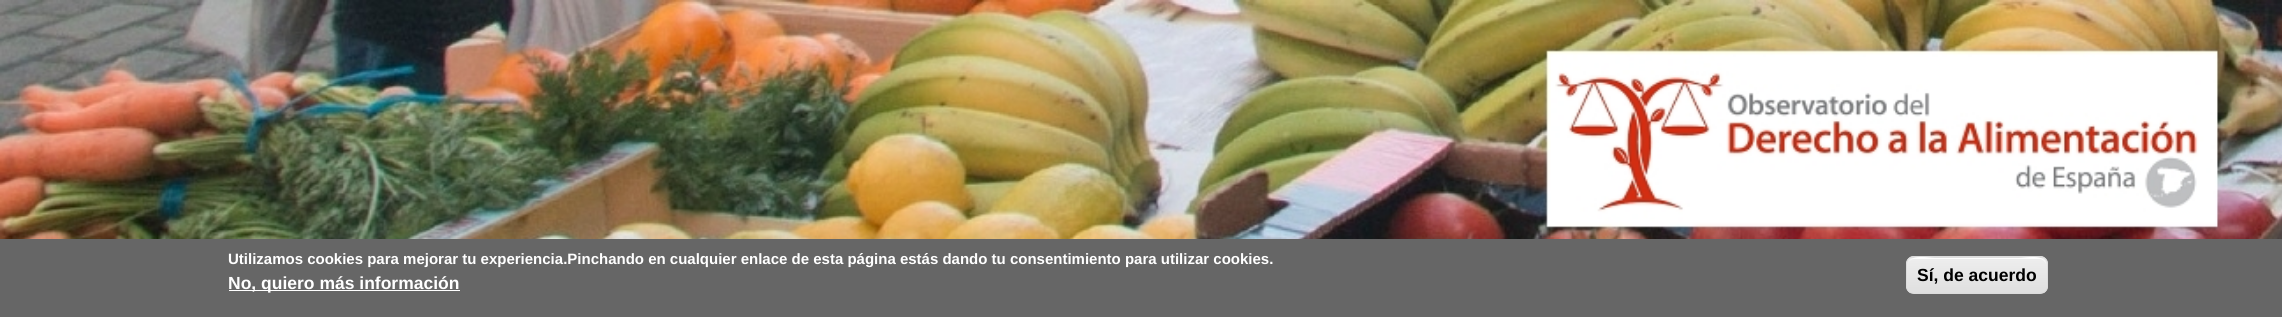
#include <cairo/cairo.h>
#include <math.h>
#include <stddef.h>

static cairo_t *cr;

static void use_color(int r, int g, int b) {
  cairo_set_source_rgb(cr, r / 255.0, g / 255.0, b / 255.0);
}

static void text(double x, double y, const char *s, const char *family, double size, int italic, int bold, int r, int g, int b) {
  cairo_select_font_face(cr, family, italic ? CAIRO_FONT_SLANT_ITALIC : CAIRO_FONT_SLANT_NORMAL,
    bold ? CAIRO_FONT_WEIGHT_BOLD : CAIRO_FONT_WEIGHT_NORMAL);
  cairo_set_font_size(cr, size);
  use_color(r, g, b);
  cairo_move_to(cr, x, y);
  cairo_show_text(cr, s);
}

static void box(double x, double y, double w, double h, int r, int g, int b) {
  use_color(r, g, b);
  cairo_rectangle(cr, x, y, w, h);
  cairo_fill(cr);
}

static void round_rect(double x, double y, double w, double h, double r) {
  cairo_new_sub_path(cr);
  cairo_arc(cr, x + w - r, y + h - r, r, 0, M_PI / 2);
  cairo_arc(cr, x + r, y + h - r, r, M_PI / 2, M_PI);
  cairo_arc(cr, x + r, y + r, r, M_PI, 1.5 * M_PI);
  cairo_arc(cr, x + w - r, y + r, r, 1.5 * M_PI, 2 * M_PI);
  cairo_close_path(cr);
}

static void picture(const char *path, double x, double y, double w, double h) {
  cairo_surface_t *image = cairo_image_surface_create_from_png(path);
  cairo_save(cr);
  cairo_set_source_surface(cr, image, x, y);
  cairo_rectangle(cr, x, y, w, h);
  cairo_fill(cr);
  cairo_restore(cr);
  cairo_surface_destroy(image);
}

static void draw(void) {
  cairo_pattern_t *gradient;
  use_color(255, 255, 255);
  cairo_paint(cr);
  picture("img_01.png", 0, 0, 2282, 239);
  box(0, 239, 2282, 78, 102, 102, 102);
  box(229, 290, 231, 1, 255, 255, 255);
  cairo_save(cr);
  round_rect(1906, 256, 142, 38, 8);
  cairo_clip(cr);
  gradient = cairo_pattern_create_linear(1977, 223, 1977, 258);
  cairo_pattern_add_color_stop_rgba(gradient, 0.05, 0.929, 0.929, 0.929, 1);
  cairo_pattern_add_color_stop_rgba(gradient, 1, 0.875, 0.875, 0.875, 1);
  cairo_set_source(cr, gradient);
  cairo_pattern_destroy(gradient);
  cairo_rectangle(cr, 1906, 256, 142, 2);
  cairo_fill(cr);
  gradient = cairo_pattern_create_linear(1977, 258, 1977, 293);
  cairo_pattern_add_color_stop_rgba(gradient, 0.05, 0.929, 0.929, 0.929, 1);
  cairo_pattern_add_color_stop_rgba(gradient, 1, 0.875, 0.875, 0.875, 1);
  cairo_set_source(cr, gradient);
  cairo_pattern_destroy(gradient);
  cairo_rectangle(cr, 1906, 258, 142, 35);
  cairo_fill(cr);
  cairo_restore(cr);
  cairo_new_path(cr);
  cairo_move_to(cr, 1914, 259);
  cairo_line_to(cr, 2040, 259);
  cairo_curve_to(cr, 2043, 259, 2046, 262, 2046, 265);
  cairo_curve_to(cr, 2046, 253, 2024, 258, 2019, 258);
  cairo_line_to(cr, 1935, 258);
  cairo_curve_to(cr, 1930, 258, 1908, 253, 1908, 265);
  cairo_curve_to(cr, 1908, 262, 1910, 259, 1914, 259);
  cairo_close_path(cr);
  cairo_fill(cr);
  round_rect(1906.5, 256.5, 141, 37, 7.5);
  use_color(220, 220, 220);
  cairo_set_line_width(cr, 1);
  cairo_stroke(cr);
  text(228, 264, "Utilizamos cookies para mejorar tu experiencia.Pinchando en cualquier enlace de esta página estás dando tu consentimiento para utilizar cookies.", "Liberation Sans", 15, 0, 1, 255, 255, 255);
  text(228, 289, "No, quiero más información", "Liberation Sans", 17.5, 0, 1, 255, 255, 255);
  text(1917, 281, "Sí, de acuerdo", "Liberation Sans", 17.5, 0, 1, 0, 0, 0);
}

int main(void) {
  cairo_surface_t *surface = cairo_image_surface_create(CAIRO_FORMAT_RGB24, 2282, 317);
  cr = cairo_create(surface);
  cairo_font_options_t *options = cairo_font_options_create();
  cairo_font_options_set_hint_metrics(options, CAIRO_HINT_METRICS_OFF);
  cairo_font_options_set_hint_style(options, CAIRO_HINT_STYLE_NONE);
  cairo_set_font_options(cr, options);
  cairo_set_miter_limit(cr, 4);
  draw();
  cairo_surface_write_to_png(surface, "out.png");
  cairo_font_options_destroy(options);
  cairo_destroy(cr);
  cairo_surface_destroy(surface);
  return 0;
}
